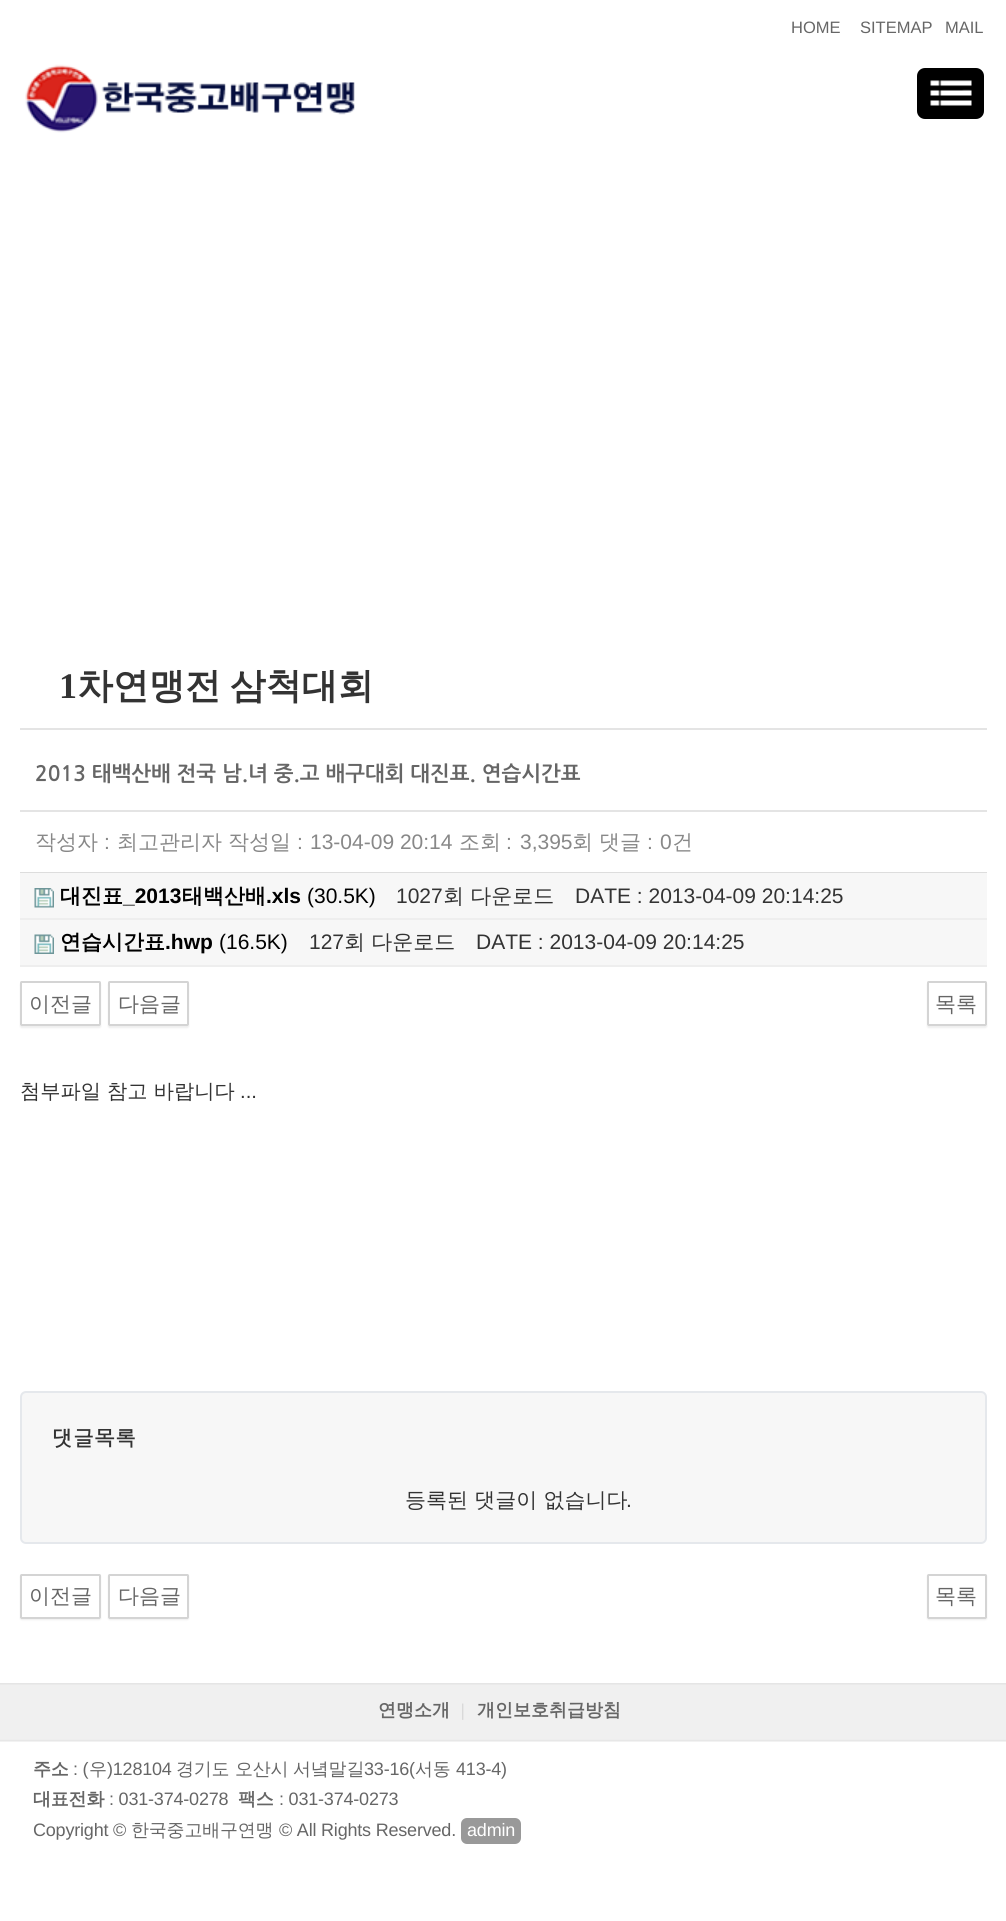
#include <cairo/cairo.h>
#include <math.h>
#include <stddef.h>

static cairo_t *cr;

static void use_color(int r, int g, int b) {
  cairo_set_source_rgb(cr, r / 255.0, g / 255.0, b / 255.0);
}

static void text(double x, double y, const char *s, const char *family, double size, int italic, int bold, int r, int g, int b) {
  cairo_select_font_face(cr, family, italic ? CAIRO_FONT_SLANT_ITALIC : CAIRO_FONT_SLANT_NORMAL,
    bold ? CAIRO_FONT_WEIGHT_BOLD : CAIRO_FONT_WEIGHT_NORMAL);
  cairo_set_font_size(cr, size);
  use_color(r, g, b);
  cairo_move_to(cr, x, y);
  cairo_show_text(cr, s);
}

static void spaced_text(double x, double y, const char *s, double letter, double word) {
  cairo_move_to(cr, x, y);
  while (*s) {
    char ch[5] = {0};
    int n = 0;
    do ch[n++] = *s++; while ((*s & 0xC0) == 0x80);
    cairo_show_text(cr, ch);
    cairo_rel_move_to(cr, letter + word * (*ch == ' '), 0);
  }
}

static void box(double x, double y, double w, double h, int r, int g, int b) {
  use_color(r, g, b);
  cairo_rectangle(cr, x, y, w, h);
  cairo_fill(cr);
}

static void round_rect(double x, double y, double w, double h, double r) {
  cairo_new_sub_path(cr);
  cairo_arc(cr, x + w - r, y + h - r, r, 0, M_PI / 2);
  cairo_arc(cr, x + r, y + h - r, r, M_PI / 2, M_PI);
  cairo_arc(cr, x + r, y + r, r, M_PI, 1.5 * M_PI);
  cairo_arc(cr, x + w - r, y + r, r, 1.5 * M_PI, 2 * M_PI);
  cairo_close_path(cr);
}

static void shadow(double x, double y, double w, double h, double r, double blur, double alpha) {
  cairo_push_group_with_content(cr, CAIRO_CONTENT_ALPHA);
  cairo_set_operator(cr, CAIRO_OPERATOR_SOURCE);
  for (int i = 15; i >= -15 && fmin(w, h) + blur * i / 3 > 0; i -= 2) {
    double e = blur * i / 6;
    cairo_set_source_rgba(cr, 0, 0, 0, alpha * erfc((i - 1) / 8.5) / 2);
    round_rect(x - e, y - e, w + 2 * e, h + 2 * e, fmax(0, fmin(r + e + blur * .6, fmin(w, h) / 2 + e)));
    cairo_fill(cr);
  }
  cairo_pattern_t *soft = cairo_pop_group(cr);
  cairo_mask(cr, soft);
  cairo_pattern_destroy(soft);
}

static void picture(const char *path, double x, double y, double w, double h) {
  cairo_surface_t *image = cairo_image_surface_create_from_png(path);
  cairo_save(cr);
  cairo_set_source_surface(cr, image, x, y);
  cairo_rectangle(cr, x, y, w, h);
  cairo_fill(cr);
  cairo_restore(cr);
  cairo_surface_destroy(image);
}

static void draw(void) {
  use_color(255, 255, 255);
  cairo_paint(cr);
  picture("img_01.png", 25, 64, 330, 69);
  use_color(0, 0, 0);
  round_rect(917, 68, 67, 51, 8);
  cairo_fill(cr);
  picture("img_02.png", 930, 80, 42, 26);
  box(20, 728, 967, 2, 228, 228, 228);
  box(20, 810, 967, 2, 228, 228, 228);
  box(20, 872, 967, 1, 221, 221, 221);
  box(20, 873, 967, 45, 247, 247, 247);
  box(20, 918, 967, 2, 238, 238, 238);
  picture("img_03.png", 34, 888, 20, 20);
  box(20, 920, 967, 45, 247, 247, 247);
  box(20, 965, 967, 2, 238, 238, 238);
  picture("img_04.png", 34, 934, 20, 20);
  cairo_save(cr);
  cairo_set_fill_rule(cr, CAIRO_FILL_RULE_EVEN_ODD);
  cairo_new_path(cr);
  cairo_move_to(cr, 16, 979);
  cairo_line_to(cr, 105, 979);
  cairo_line_to(cr, 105, 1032);
  cairo_line_to(cr, 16, 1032);
  cairo_close_path(cr);
  cairo_move_to(cr, 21.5, 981);
  cairo_line_to(cr, 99.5, 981);
  cairo_curve_to(cr, 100.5, 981, 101, 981.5, 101, 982.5);
  cairo_line_to(cr, 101, 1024.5);
  cairo_curve_to(cr, 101, 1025.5, 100.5, 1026, 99.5, 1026);
  cairo_line_to(cr, 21.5, 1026);
  cairo_curve_to(cr, 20.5, 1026, 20, 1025.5, 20, 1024.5);
  cairo_line_to(cr, 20, 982.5);
  cairo_curve_to(cr, 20, 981.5, 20.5, 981, 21.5, 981);
  cairo_close_path(cr);
  cairo_clip(cr);
  use_color(0, 0, 0);
  shadow(20, 983, 81, 45, 1.5, 1, 0.07);
  cairo_restore(cr);
  round_rect(21, 982, 79, 43, 0.5);
  use_color(212, 212, 212);
  cairo_stroke(cr);
  cairo_save(cr);
  cairo_set_fill_rule(cr, CAIRO_FILL_RULE_EVEN_ODD);
  cairo_new_path(cr);
  cairo_move_to(cr, 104, 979);
  cairo_line_to(cr, 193, 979);
  cairo_line_to(cr, 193, 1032);
  cairo_line_to(cr, 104, 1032);
  cairo_close_path(cr);
  cairo_move_to(cr, 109.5, 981);
  cairo_line_to(cr, 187.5, 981);
  cairo_curve_to(cr, 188.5, 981, 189, 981.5, 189, 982.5);
  cairo_line_to(cr, 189, 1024.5);
  cairo_curve_to(cr, 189, 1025.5, 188.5, 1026, 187.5, 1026);
  cairo_line_to(cr, 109.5, 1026);
  cairo_curve_to(cr, 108.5, 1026, 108, 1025.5, 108, 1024.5);
  cairo_line_to(cr, 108, 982.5);
  cairo_curve_to(cr, 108, 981.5, 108.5, 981, 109.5, 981);
  cairo_close_path(cr);
  cairo_clip(cr);
  use_color(0, 0, 0);
  shadow(108, 983, 81, 45, 1.5, 1, 0.07);
  cairo_restore(cr);
  round_rect(109, 982, 79, 43, 0.5);
  cairo_stroke(cr);
  cairo_save(cr);
  cairo_set_fill_rule(cr, CAIRO_FILL_RULE_EVEN_ODD);
  cairo_new_path(cr);
  cairo_move_to(cr, 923, 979);
  cairo_line_to(cr, 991, 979);
  cairo_line_to(cr, 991, 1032);
  cairo_line_to(cr, 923, 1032);
  cairo_close_path(cr);
  cairo_move_to(cr, 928.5, 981);
  cairo_line_to(cr, 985.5, 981);
  cairo_curve_to(cr, 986.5, 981, 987, 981.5, 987, 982.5);
  cairo_line_to(cr, 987, 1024.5);
  cairo_curve_to(cr, 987, 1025.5, 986.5, 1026, 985.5, 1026);
  cairo_line_to(cr, 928.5, 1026);
  cairo_curve_to(cr, 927.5, 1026, 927, 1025.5, 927, 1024.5);
  cairo_line_to(cr, 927, 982.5);
  cairo_curve_to(cr, 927, 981.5, 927.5, 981, 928.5, 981);
  cairo_close_path(cr);
  cairo_clip(cr);
  use_color(0, 0, 0);
  shadow(927, 983, 60, 45, 1.5, 1, 0.07);
  cairo_restore(cr);
  round_rect(928, 982, 58, 43, 0.5);
  cairo_stroke(cr);
  use_color(247, 247, 247);
  round_rect(21, 1392, 965, 151, 5);
  cairo_fill_preserve(cr);
  use_color(229, 232, 236);
  cairo_stroke(cr);
  cairo_save(cr);
  cairo_set_fill_rule(cr, CAIRO_FILL_RULE_EVEN_ODD);
  cairo_new_path(cr);
  cairo_move_to(cr, 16, 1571);
  cairo_line_to(cr, 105, 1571);
  cairo_line_to(cr, 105, 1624);
  cairo_line_to(cr, 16, 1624);
  cairo_close_path(cr);
  cairo_move_to(cr, 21.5, 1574);
  cairo_line_to(cr, 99.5, 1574);
  cairo_curve_to(cr, 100.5, 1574, 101, 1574.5, 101, 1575.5);
  cairo_line_to(cr, 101, 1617.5);
  cairo_curve_to(cr, 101, 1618.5, 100.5, 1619, 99.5, 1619);
  cairo_line_to(cr, 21.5, 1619);
  cairo_curve_to(cr, 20.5, 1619, 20, 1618.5, 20, 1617.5);
  cairo_line_to(cr, 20, 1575.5);
  cairo_curve_to(cr, 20, 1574.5, 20.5, 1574, 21.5, 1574);
  cairo_close_path(cr);
  cairo_clip(cr);
  use_color(0, 0, 0);
  shadow(20, 1575, 81, 45, 1.5, 1, 0.07);
  cairo_restore(cr);
  round_rect(21, 1575, 79, 43, 0.5);
  use_color(212, 212, 212);
  cairo_stroke(cr);
  cairo_save(cr);
  cairo_set_fill_rule(cr, CAIRO_FILL_RULE_EVEN_ODD);
  cairo_new_path(cr);
  cairo_move_to(cr, 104, 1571);
  cairo_line_to(cr, 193, 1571);
  cairo_line_to(cr, 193, 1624);
  cairo_line_to(cr, 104, 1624);
  cairo_close_path(cr);
  cairo_move_to(cr, 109.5, 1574);
  cairo_line_to(cr, 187.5, 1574);
  cairo_curve_to(cr, 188.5, 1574, 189, 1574.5, 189, 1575.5);
  cairo_line_to(cr, 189, 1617.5);
  cairo_curve_to(cr, 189, 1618.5, 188.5, 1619, 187.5, 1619);
  cairo_line_to(cr, 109.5, 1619);
  cairo_curve_to(cr, 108.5, 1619, 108, 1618.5, 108, 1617.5);
  cairo_line_to(cr, 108, 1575.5);
  cairo_curve_to(cr, 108, 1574.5, 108.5, 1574, 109.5, 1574);
  cairo_close_path(cr);
  cairo_clip(cr);
  use_color(0, 0, 0);
  shadow(108, 1575, 81, 45, 1.5, 1, 0.07);
  cairo_restore(cr);
  round_rect(109, 1575, 79, 43, 0.5);
  cairo_stroke(cr);
  cairo_save(cr);
  cairo_set_fill_rule(cr, CAIRO_FILL_RULE_EVEN_ODD);
  cairo_new_path(cr);
  cairo_move_to(cr, 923, 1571);
  cairo_line_to(cr, 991, 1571);
  cairo_line_to(cr, 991, 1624);
  cairo_line_to(cr, 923, 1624);
  cairo_close_path(cr);
  cairo_move_to(cr, 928.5, 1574);
  cairo_line_to(cr, 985.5, 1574);
  cairo_curve_to(cr, 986.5, 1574, 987, 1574.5, 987, 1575.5);
  cairo_line_to(cr, 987, 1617.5);
  cairo_curve_to(cr, 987, 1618.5, 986.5, 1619, 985.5, 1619);
  cairo_line_to(cr, 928.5, 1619);
  cairo_curve_to(cr, 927.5, 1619, 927, 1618.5, 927, 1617.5);
  cairo_line_to(cr, 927, 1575.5);
  cairo_curve_to(cr, 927, 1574.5, 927.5, 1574, 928.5, 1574);
  cairo_close_path(cr);
  cairo_clip(cr);
  use_color(0, 0, 0);
  shadow(927, 1575, 60, 45, 1.5, 1, 0.07);
  cairo_restore(cr);
  round_rect(928, 1575, 58, 43, 0.5);
  cairo_stroke(cr);
  picture("img_05.png", 0, 1683, 1006, 59);
  use_color(153, 153, 153);
  round_rect(461, 1818, 60, 26, 6);
  cairo_fill(cr);
  text(791, 33, "HOME", "Liberation Sans", 16.5, 0, 0, 102, 102, 102);
  text(860, 33, "SITEMAP", "Liberation Sans", 16.5, 0, 0, 102, 102, 102);
  text(945, 33, "MAIL", "Liberation Sans", 16.5, 0, 0, 102, 102, 102);
  text(59, 698, "1", "Liberation Serif", 36, 0, 1, 51, 51, 51);
  cairo_select_font_face(cr, "WenQuanYi Zen Hei", CAIRO_FONT_SLANT_NORMAL, CAIRO_FONT_WEIGHT_BOLD);
  spaced_text(77, 698, "차연맹전 삼척대회", 0, -2);
  text(35, 781, "2013 태백산배 전국 남.녀 중.고 배구대회 대진표. 연습시간표", "NanumGothic", 21, 0, 1, 102, 102, 102);
  text(35, 849, "작성자", "WenQuanYi Zen Hei Medium", 21, 0, 0, 136, 136, 136);
  text(104, 849, ":", "Liberation Sans", 21, 0, 0, 136, 136, 136);
  text(117, 849, "최고관리자", "WenQuanYi Zen Hei Medium", 21, 0, 0, 136, 136, 136);
  text(228, 849, "작성일", "WenQuanYi Zen Hei Medium", 21, 0, 0, 136, 136, 136);
  text(297, 849, ":", "Liberation Sans", 21, 0, 0, 136, 136, 136);
  text(310, 849, "13-04-09 20:14", "Liberation Sans", 21, 0, 0, 136, 136, 136);
  text(459, 849, "조회", "WenQuanYi Zen Hei Medium", 21, 0, 0, 136, 136, 136);
  text(506, 849, ":", "Liberation Sans", 21, 0, 0, 136, 136, 136);
  text(520, 849, "3,395", "Liberation Sans", 21, 0, 0, 136, 136, 136);
  text(572, 849, "회", "WenQuanYi Zen Hei Medium", 21, 0, 0, 136, 136, 136);
  text(599, 849, "댓글", "WenQuanYi Zen Hei Medium", 21, 0, 0, 136, 136, 136);
  text(647, 849, ":", "Liberation Sans", 21, 0, 0, 136, 136, 136);
  text(660, 849, "0", "Liberation Sans", 21, 0, 0, 136, 136, 136);
  text(672, 849, "건", "WenQuanYi Zen Hei Medium", 21, 0, 0, 136, 136, 136);
  text(60, 903, "대진표", "WenQuanYi Zen Hei", 21, 0, 1, 0, 0, 0);
  text(123, 903, "_2013", "Liberation Sans", 21, 0, 1, 0, 0, 0);
  text(182, 903, "태백산배", "WenQuanYi Zen Hei", 21, 0, 1, 0, 0, 0);
  text(266, 903, ".xls", "Liberation Sans", 21, 0, 1, 0, 0, 0);
  text(307, 903, "(30.5K)", "Liberation Sans", 21, 0, 0, 0, 0, 0);
  text(396, 903, "1027", "Liberation Sans", 21, 0, 0, 51, 51, 51);
  text(443, 903, "회 다운로드", "WenQuanYi Zen Hei Medium", 21, 0, 0, 51, 51, 51);
  text(575, 903, "DATE : 2013-04-09 20:14:25", "Liberation Sans", 21, 0, 0, 51, 51, 51);
  text(60, 949, "연습시간표", "WenQuanYi Zen Hei", 21, 0, 1, 0, 0, 0);
  text(165, 949, ".hwp", "Liberation Sans", 21, 0, 1, 0, 0, 0);
  text(219, 949, "(16.5K)", "Liberation Sans", 21, 0, 0, 0, 0, 0);
  text(309, 949, "127", "Liberation Sans", 21, 0, 0, 51, 51, 51);
  text(344, 949, "회 다운로드", "WenQuanYi Zen Hei Medium", 21, 0, 0, 51, 51, 51);
  text(476, 949, "DATE : 2013-04-09 20:14:25", "Liberation Sans", 21, 0, 0, 51, 51, 51);
  text(29, 1011, "이전글", "WenQuanYi Zen Hei Medium", 21, 0, 0, 102, 102, 102);
  text(118, 1011, "다음글", "WenQuanYi Zen Hei Medium", 21, 0, 0, 102, 102, 102);
  text(935, 1011, "목록", "WenQuanYi Zen Hei Medium", 21, 0, 0, 102, 102, 102);
  text(20, 1098, "첨부파일 참고 바랍니다", "WenQuanYi Zen Hei Medium", 20.25, 0, 0, 51, 51, 51);
  text(240, 1098, "...", "Liberation Sans", 20.25, 0, 0, 51, 51, 51);
  text(52, 1446, "댓글목록", "Dotum", 21, 0, 1, 51, 51, 51);
  text(405, 1507, "등록된 댓글이 없습니다", "WenQuanYi Zen Hei Medium", 21, 0, 0, 51, 51, 51);
  text(626, 1507, ".", "Liberation Sans", 21, 0, 0, 51, 51, 51);
  text(29, 1603, "이전글", "WenQuanYi Zen Hei Medium", 21, 0, 0, 102, 102, 102);
  text(118, 1603, "다음글", "WenQuanYi Zen Hei Medium", 21, 0, 0, 102, 102, 102);
  text(935, 1603, "목록", "WenQuanYi Zen Hei Medium", 21, 0, 0, 102, 102, 102);
  text(378, 1716, "연맹소개", "WenQuanYi Zen Hei", 18, 0, 1, 102, 102, 102);
  text(461, 1716, "|", "Liberation Serif", 18, 0, 0, 204, 204, 204);
  text(477, 1716, "개인보호취급방침", "WenQuanYi Zen Hei", 18, 0, 1, 102, 102, 102);
  spaced_text(33, 1775, "주소", -0.2, 0);
  cairo_select_font_face(cr, "Liberation Sans", CAIRO_FONT_SLANT_NORMAL, CAIRO_FONT_WEIGHT_NORMAL);
  spaced_text(73, 1775, ": (", -0.2, 0);
  cairo_select_font_face(cr, "WenQuanYi Zen Hei Medium", CAIRO_FONT_SLANT_NORMAL, CAIRO_FONT_WEIGHT_NORMAL);
  spaced_text(89, 1775, "우", -0.2, 0);
  cairo_select_font_face(cr, "Liberation Sans", CAIRO_FONT_SLANT_NORMAL, CAIRO_FONT_WEIGHT_NORMAL);
  spaced_text(107, 1775, ")128104", -0.2, 0);
  cairo_select_font_face(cr, "WenQuanYi Zen Hei Medium", CAIRO_FONT_SLANT_NORMAL, CAIRO_FONT_WEIGHT_NORMAL);
  spaced_text(176, 1775, "경기도", -0.2, 0);
  spaced_text(235, 1775, "오산시", -0.2, 0);
  spaced_text(293, 1775, "서녘말길", -0.2, 0);
  cairo_select_font_face(cr, "Liberation Sans", CAIRO_FONT_SLANT_NORMAL, CAIRO_FONT_WEIGHT_NORMAL);
  spaced_text(364, 1775, "33-16(", -0.2, 0);
  cairo_select_font_face(cr, "WenQuanYi Zen Hei Medium", CAIRO_FONT_SLANT_NORMAL, CAIRO_FONT_WEIGHT_NORMAL);
  spaced_text(415, 1775, "서동", -0.2, 0);
  cairo_select_font_face(cr, "Liberation Sans", CAIRO_FONT_SLANT_NORMAL, CAIRO_FONT_WEIGHT_NORMAL);
  spaced_text(456, 1775, "413-4)", -0.2, 0);
  cairo_select_font_face(cr, "WenQuanYi Zen Hei", CAIRO_FONT_SLANT_NORMAL, CAIRO_FONT_WEIGHT_BOLD);
  spaced_text(33, 1805, "대표전화", -0.2, 0);
  cairo_select_font_face(cr, "Liberation Sans", CAIRO_FONT_SLANT_NORMAL, CAIRO_FONT_WEIGHT_NORMAL);
  spaced_text(109, 1805, ": 031-374-0278", -0.2, 0);
  cairo_select_font_face(cr, "WenQuanYi Zen Hei", CAIRO_FONT_SLANT_NORMAL, CAIRO_FONT_WEIGHT_BOLD);
  spaced_text(238, 1805, "팩스", -0.2, 0);
  cairo_select_font_face(cr, "Liberation Sans", CAIRO_FONT_SLANT_NORMAL, CAIRO_FONT_WEIGHT_NORMAL);
  spaced_text(279, 1805, ": 031-374-0273", -0.2, 0);
  spaced_text(33, 1836, "Copyright ©", -0.2, 0);
  cairo_select_font_face(cr, "WenQuanYi Zen Hei Medium", CAIRO_FONT_SLANT_NORMAL, CAIRO_FONT_WEIGHT_NORMAL);
  spaced_text(131, 1836, "한국중고배구연맹", -0.2, 0);
  cairo_select_font_face(cr, "Liberation Sans", CAIRO_FONT_SLANT_NORMAL, CAIRO_FONT_WEIGHT_NORMAL);
  spaced_text(279, 1836, "© All Rights Reserved.", -0.2, 0);
  use_color(255, 255, 255);
  spaced_text(467, 1836, "admin", -0.2, 0);
}

int main(void) {
  cairo_surface_t *surface = cairo_image_surface_create(CAIRO_FORMAT_RGB24, 1006, 1921);
  cr = cairo_create(surface);
  cairo_font_options_t *options = cairo_font_options_create();
  cairo_font_options_set_hint_metrics(options, CAIRO_HINT_METRICS_OFF);
  cairo_font_options_set_hint_style(options, CAIRO_HINT_STYLE_NONE);
  cairo_set_font_options(cr, options);
  cairo_set_miter_limit(cr, 4);
  draw();
  cairo_surface_write_to_png(surface, "out.png");
  cairo_font_options_destroy(options);
  cairo_destroy(cr);
  cairo_surface_destroy(surface);
  return 0;
}
